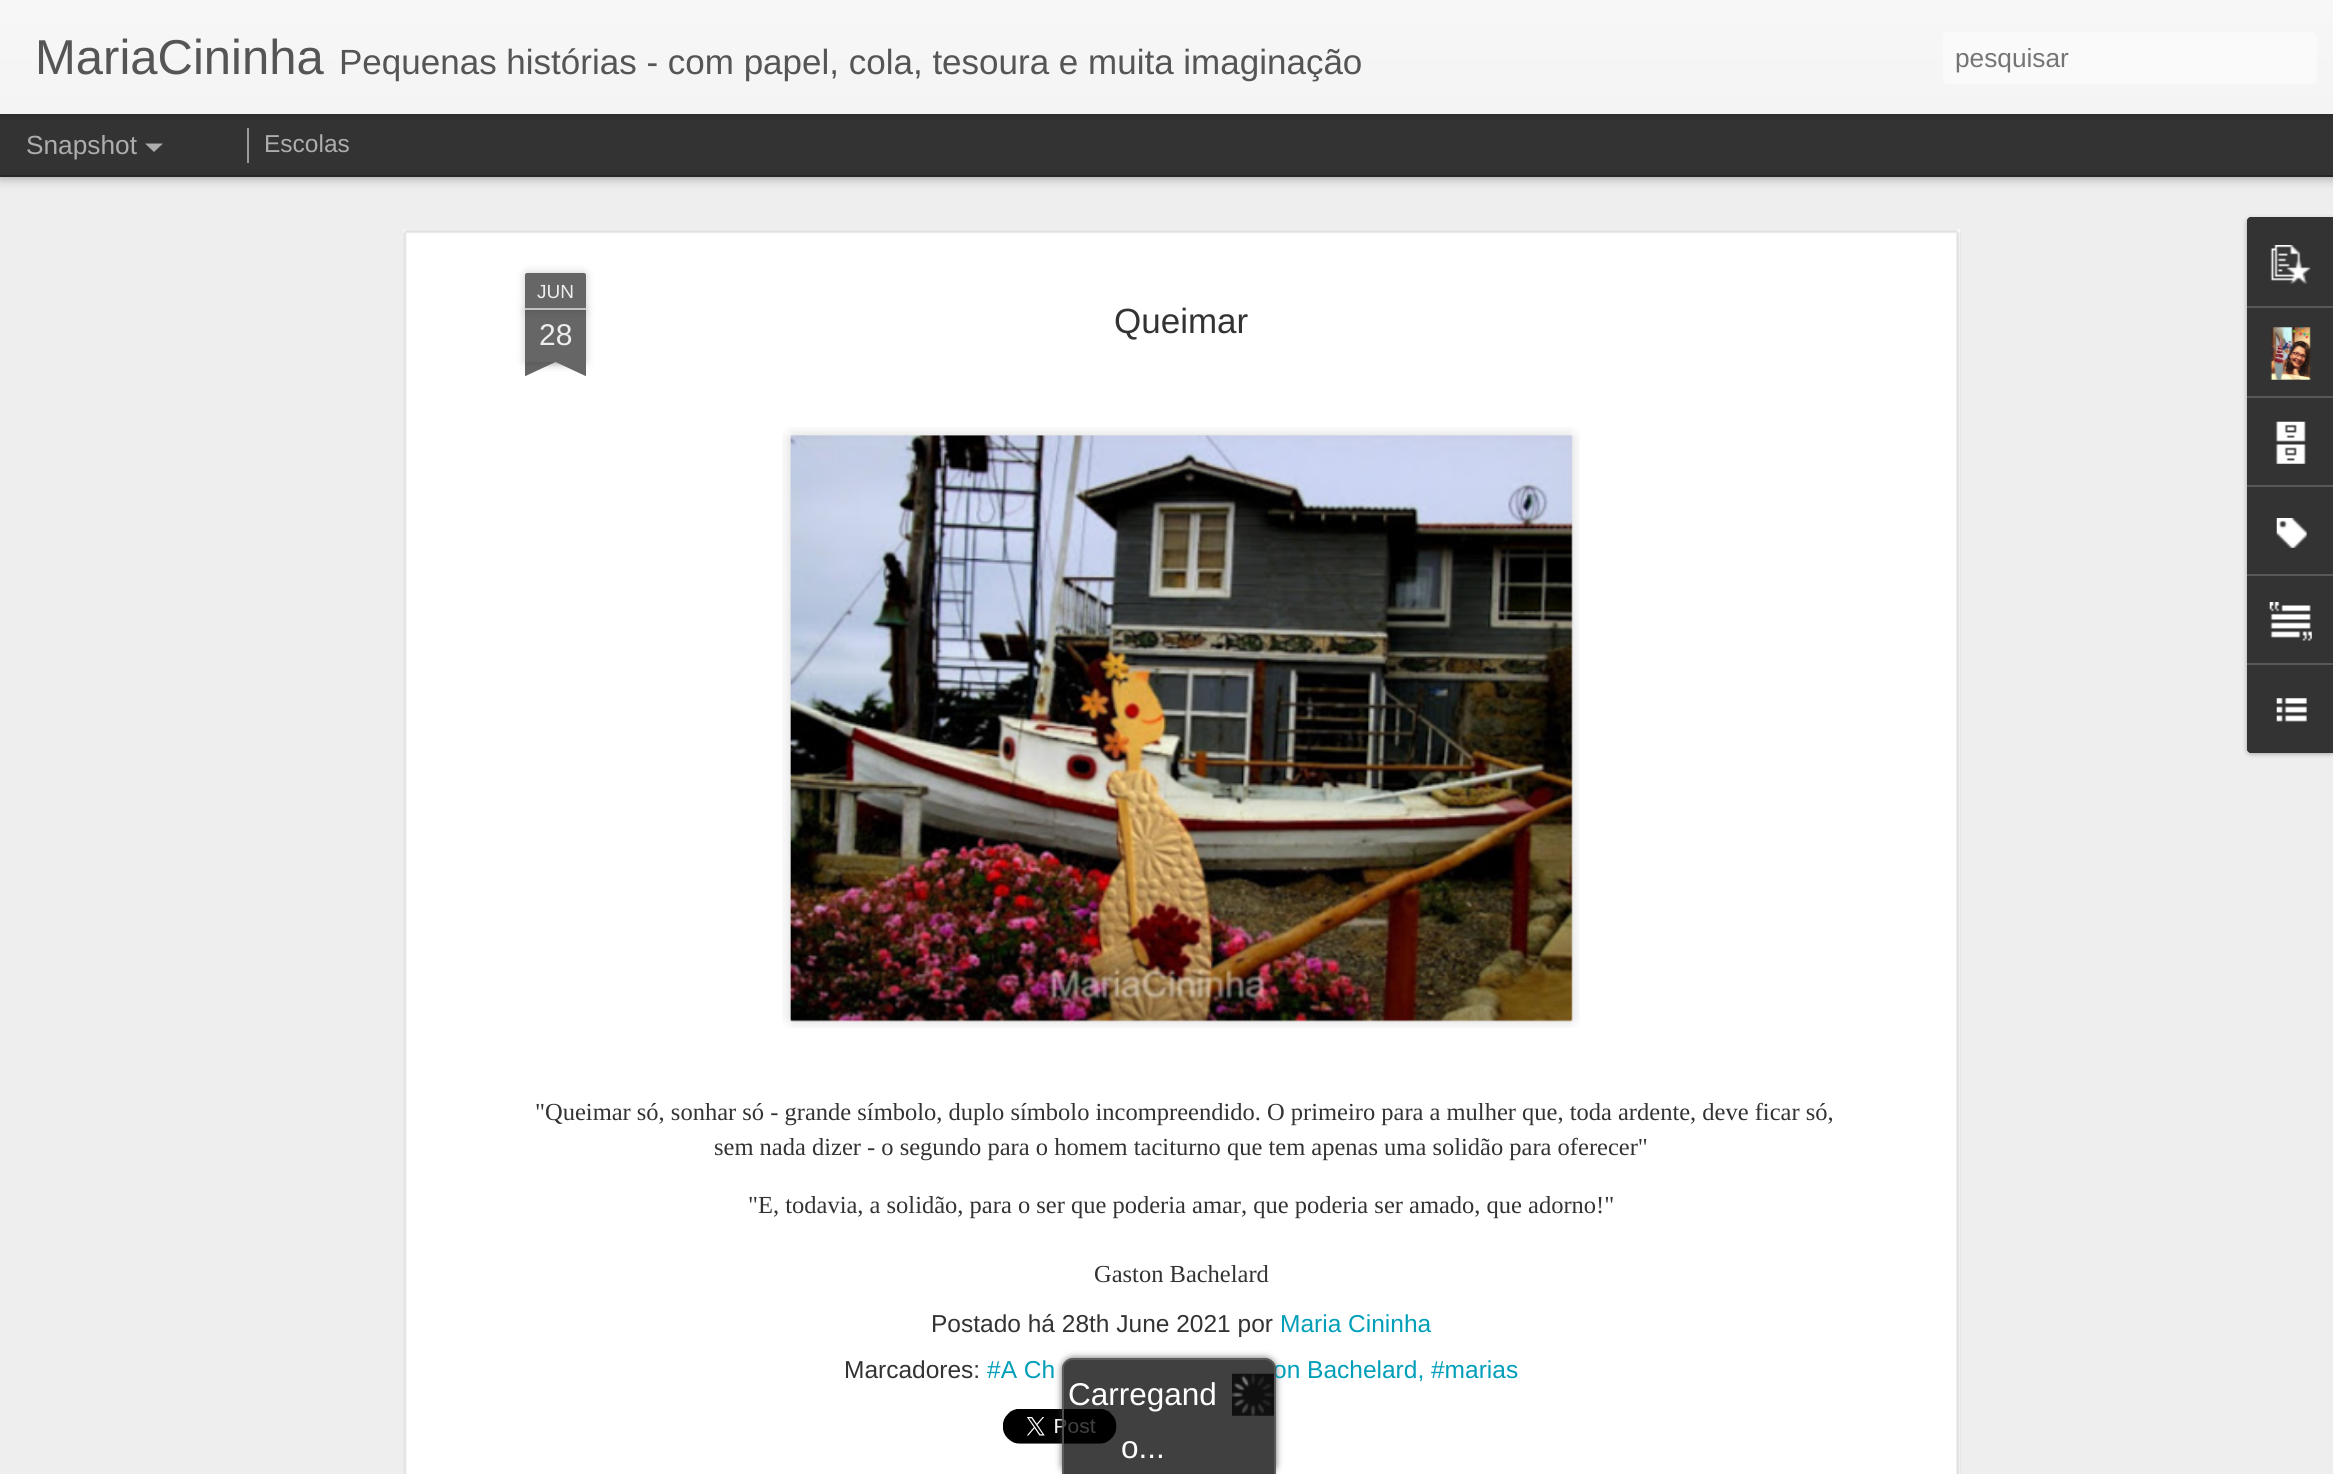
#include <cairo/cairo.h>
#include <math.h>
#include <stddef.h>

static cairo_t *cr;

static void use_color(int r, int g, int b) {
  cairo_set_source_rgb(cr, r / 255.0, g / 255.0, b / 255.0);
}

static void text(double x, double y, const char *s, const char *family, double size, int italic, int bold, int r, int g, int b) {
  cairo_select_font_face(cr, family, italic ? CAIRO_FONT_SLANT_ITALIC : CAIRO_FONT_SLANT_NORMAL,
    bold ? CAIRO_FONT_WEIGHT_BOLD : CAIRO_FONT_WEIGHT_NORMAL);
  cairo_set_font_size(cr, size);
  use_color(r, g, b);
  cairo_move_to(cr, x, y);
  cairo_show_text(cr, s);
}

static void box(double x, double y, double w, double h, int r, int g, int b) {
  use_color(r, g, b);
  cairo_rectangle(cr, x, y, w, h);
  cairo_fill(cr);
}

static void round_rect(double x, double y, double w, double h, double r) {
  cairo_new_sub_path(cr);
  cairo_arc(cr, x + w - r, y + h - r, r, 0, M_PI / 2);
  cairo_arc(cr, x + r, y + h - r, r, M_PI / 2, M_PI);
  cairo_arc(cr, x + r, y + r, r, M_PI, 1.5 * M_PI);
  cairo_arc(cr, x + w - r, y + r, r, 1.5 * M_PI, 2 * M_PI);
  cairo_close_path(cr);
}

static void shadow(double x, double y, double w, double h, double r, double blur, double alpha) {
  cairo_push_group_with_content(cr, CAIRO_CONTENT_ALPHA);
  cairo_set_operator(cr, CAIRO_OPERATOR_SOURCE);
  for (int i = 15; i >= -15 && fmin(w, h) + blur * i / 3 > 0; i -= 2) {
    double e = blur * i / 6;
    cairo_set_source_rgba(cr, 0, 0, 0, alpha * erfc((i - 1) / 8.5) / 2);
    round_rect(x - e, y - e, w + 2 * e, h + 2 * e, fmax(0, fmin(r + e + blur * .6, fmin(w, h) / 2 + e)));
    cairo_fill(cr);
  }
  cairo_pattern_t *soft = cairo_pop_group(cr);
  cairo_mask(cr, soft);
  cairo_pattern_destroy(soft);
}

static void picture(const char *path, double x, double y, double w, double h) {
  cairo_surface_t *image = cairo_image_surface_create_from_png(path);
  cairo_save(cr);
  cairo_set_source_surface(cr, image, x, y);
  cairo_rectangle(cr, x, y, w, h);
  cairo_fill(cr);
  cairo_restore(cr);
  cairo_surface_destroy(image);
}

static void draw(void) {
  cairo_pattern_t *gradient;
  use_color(51, 51, 51);
  cairo_paint(cr);
  box(0, 177, 2333, 1297, 238, 238, 238);
  use_color(0, 0, 0);
  shadow(0, 114, 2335, 61, 0, 7, 0.5);
  box(0, 114, 2333, 61, 51, 51, 51);
  box(247, 128, 2, 35, 153, 153, 153);
  use_color(0, 0, 0);
  shadow(0, 0, 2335, 114, 0, 4.5, 0.3);
  gradient = cairo_pattern_create_linear(0, 0, 0, 114);
  cairo_pattern_add_color_stop_rgba(gradient, 0, 0.969, 0.969, 0.969, 1);
  cairo_pattern_add_color_stop_rgba(gradient, 1, 0.957, 0.957, 0.957, 1);
  cairo_set_source(cr, gradient);
  cairo_pattern_destroy(gradient);
  cairo_rectangle(cr, 0, 0, 2333, 114);
  cairo_fill(cr);
  use_color(250, 250, 250);
  round_rect(1943, 32, 374, 52, 5);
  cairo_fill(cr);
  use_color(173, 173, 173);
  cairo_new_path(cr);
  cairo_move_to(cr, 145, 143.5);
  cairo_line_to(cr, 163, 143.5);
  cairo_line_to(cr, 154, 152);
  cairo_close_path(cr);
  cairo_fill(cr);
  box(403, 229, 1557, 1245, 255, 255, 255);
  picture("img_01.png", 403, 229, 1558, 1245);
  use_color(0, 0, 0);
  shadow(525, 310, 61, 52, 0, 4.5, 0.2);
  box(525, 310, 61, 52, 102, 102, 102);
  use_color(0, 0, 0);
  shadow(525, 273, 61, 37, 2, 4.5, 0.2);
  use_color(102, 102, 102);
  cairo_new_path(cr);
  cairo_move_to(cr, 527, 273);
  cairo_line_to(cr, 584, 273);
  cairo_curve_to(cr, 585, 273, 586, 274, 586, 275);
  cairo_line_to(cr, 586, 310);
  cairo_line_to(cr, 525, 310);
  cairo_line_to(cr, 525, 275);
  cairo_curve_to(cr, 525, 274, 526, 273, 527, 273);
  cairo_close_path(cr);
  cairo_fill(cr);
  box(525, 308, 61, 2, 194, 194, 194);
  cairo_save(cr);
  cairo_rectangle(cr, 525, 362, 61, 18);
  cairo_clip(cr);
  use_color(0, 0, 0);
  shadow(509, 345, 88, 17, 0, 4.5, 0.2);
  cairo_restore(cr);
  cairo_save(cr);
  cairo_rectangle(cr, 525, 362, 61, 18);
  cairo_clip(cr);
  use_color(102, 102, 102);
  cairo_new_path(cr);
  cairo_move_to(cr, 510, 364);
  cairo_line_to(cr, 589, 327);
  cairo_line_to(cr, 596, 343);
  cairo_line_to(cr, 517, 380);
  cairo_close_path(cr);
  cairo_fill(cr);
  cairo_restore(cr);
  cairo_save(cr);
  cairo_rectangle(cr, 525, 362, 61, 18);
  cairo_clip(cr);
  use_color(0, 0, 0);
  shadow(515, 345, 87, 17, 0, 4.5, 0.2);
  cairo_restore(cr);
  cairo_save(cr);
  cairo_rectangle(cr, 525, 362, 61, 18);
  cairo_clip(cr);
  use_color(102, 102, 102);
  cairo_new_path(cr);
  cairo_move_to(cr, 522, 327);
  cairo_line_to(cr, 602, 364);
  cairo_line_to(cr, 594, 380);
  cairo_line_to(cr, 515, 343);
  cairo_close_path(cr);
  cairo_fill(cr);
  cairo_restore(cr);
  picture("img_02.png", 782, 427, 798, 601);
  picture("img_03.png", 790, 435, 783, 587);
  picture("img_04.png", 1003, 1409, 114, 35);
  use_color(0, 0, 0);
  shadow(2247, 219, 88, 535, 4, 2.5, 0.3);
  use_color(51, 51, 51);
  cairo_new_path(cr);
  cairo_move_to(cr, 2251, 217);
  cairo_line_to(cr, 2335, 217);
  cairo_line_to(cr, 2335, 753);
  cairo_line_to(cr, 2251, 753);
  cairo_curve_to(cr, 2249, 753, 2247, 751, 2247, 749);
  cairo_line_to(cr, 2247, 221);
  cairo_curve_to(cr, 2247, 219, 2249, 217, 2251, 217);
  cairo_close_path(cr);
  cairo_fill(cr);
  cairo_new_path(cr);
  cairo_move_to(cr, 2251, 217);
  cairo_line_to(cr, 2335, 217);
  cairo_line_to(cr, 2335, 306);
  cairo_line_to(cr, 2247, 306);
  cairo_line_to(cr, 2247, 221);
  cairo_curve_to(cr, 2247, 219, 2249, 217, 2251, 217);
  cairo_close_path(cr);
  cairo_fill(cr);
  picture("img_05.png", 2270, 245, 41, 39);
  box(2247, 306, 86, 2, 88, 88, 88);
  picture("img_06.png", 2270, 327, 41, 53);
  box(2247, 396, 86, 2, 88, 88, 88);
  picture("img_07.png", 2275, 421, 31, 43);
  box(2247, 485, 86, 2, 88, 88, 88);
  picture("img_08.png", 2276, 518, 31, 30);
  box(2247, 574, 86, 2, 88, 88, 88);
  picture("img_09.png", 2269, 602, 43, 39);
  use_color(51, 51, 51);
  cairo_new_path(cr);
  cairo_move_to(cr, 2247, 663);
  cairo_line_to(cr, 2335, 663);
  cairo_line_to(cr, 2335, 753);
  cairo_line_to(cr, 2251, 753);
  cairo_curve_to(cr, 2249, 753, 2247, 751, 2247, 749);
  cairo_close_path(cr);
  cairo_fill(cr);
  box(2247, 663, 86, 2, 88, 88, 88);
  picture("img_10.png", 2276, 698, 31, 24);
  cairo_save(cr);
  cairo_set_fill_rule(cr, CAIRO_FILL_RULE_EVEN_ODD);
  cairo_new_path(cr);
  cairo_move_to(cr, 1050, 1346);
  cairo_line_to(cr, 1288, 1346);
  cairo_line_to(cr, 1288, 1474);
  cairo_line_to(cr, 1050, 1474);
  cairo_close_path(cr);
  cairo_move_to(cr, 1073, 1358);
  cairo_line_to(cr, 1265, 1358);
  cairo_curve_to(cr, 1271, 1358, 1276, 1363, 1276, 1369);
  cairo_line_to(cr, 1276, 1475);
  cairo_line_to(cr, 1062, 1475);
  cairo_line_to(cr, 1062, 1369);
  cairo_curve_to(cr, 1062, 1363, 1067, 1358, 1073, 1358);
  cairo_close_path(cr);
  cairo_clip(cr);
  use_color(51, 51, 51);
  shadow(1062, 1358, 214, 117, 11, 3.5, 0.75);
  cairo_restore(cr);
  text(35, 74, "MariaCininha", "Liberation Sans", 49, 0, 0, 85, 85, 85);
  text(339, 74, "Pequenas histórias - com papel, cola, tesoura e muita imaginação", "Liberation Sans", 35, 0, 0, 85, 85, 85);
  text(1955, 67, "pesquisar", "Liberation Sans", 26.25, 0, 0, 117, 117, 117);
  text(26, 154, "Snapshot", "Liberation Sans", 26.25, 0, 0, 173, 173, 173);
  text(264, 152, "Escolas", "Liberation Sans", 24.5, 0, 0, 173, 173, 173);
  text(537, 298, "JUN", "Liberation Sans", 19, 0, 0, 238, 238, 238);
  text(539, 345, "28", "Liberation Sans", 30, 0, 0, 238, 238, 238);
  text(1114, 333, "Queimar", "Liberation Sans", 35, 0, 0, 51, 51, 51);
  text(535, 1120, "\"Queimar só, sonhar só - grande símbolo, duplo símbolo incompreendido. O primeiro para a mulher que, toda ardente, deve ficar só,", "Liberation Serif", 24.5, 0, 0, 51, 51, 51);
  text(714, 1155, "sem nada dizer - o segundo para o homem taciturno que tem apenas uma solidão para oferecer\"", "Liberation Serif", 24.5, 0, 0, 51, 51, 51);
  text(748, 1213, "\"E, todavia, a solidão, para o ser que poderia amar, que poderia ser amado, que adorno!\"", "Liberation Serif", 24.5, 0, 0, 51, 51, 51);
  text(1094, 1282, "Gaston Bachelard", "Liberation Serif", 24.5, 0, 0, 51, 51, 51);
  text(931, 1332, "Postado há 28th June 2021 por", "Liberation Sans", 24.5, 0, 0, 51, 51, 51);
  text(1280, 1332, "Maria Cininha", "Liberation Sans", 24.5, 0, 0, 0, 158, 184);
  text(844, 1378, "Marcadores:", "Liberation Sans", 24.5, 0, 0, 51, 51, 51);
  text(987, 1378, "#A Ch", "Liberation Sans", 24.5, 0, 0, 0, 158, 184);
  text(1273, 1378, "on Bachelard, #marias", "Liberation Sans", 24.5, 0, 0, 0, 158, 184);
  cairo_set_source_rgba(cr, 0, 0, 0, 0.75);
  cairo_new_path(cr);
  cairo_move_to(cr, 1073, 1358);
  cairo_line_to(cr, 1265, 1358);
  cairo_curve_to(cr, 1271, 1358, 1276, 1363, 1276, 1369);
  cairo_line_to(cr, 1276, 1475);
  cairo_line_to(cr, 1062, 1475);
  cairo_line_to(cr, 1062, 1369);
  cairo_curve_to(cr, 1062, 1363, 1067, 1358, 1073, 1358);
  cairo_close_path(cr);
  cairo_fill(cr);
  cairo_set_source_rgba(cr, 0.4, 0.4, 0.4, 0.75);
  cairo_set_fill_rule(cr, CAIRO_FILL_RULE_EVEN_ODD);
  cairo_new_path(cr);
  cairo_move_to(cr, 1073, 1358);
  cairo_line_to(cr, 1265, 1358);
  cairo_curve_to(cr, 1271, 1358, 1276, 1363, 1276, 1368);
  cairo_line_to(cr, 1276, 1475);
  cairo_line_to(cr, 1062, 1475);
  cairo_line_to(cr, 1062, 1368);
  cairo_curve_to(cr, 1062, 1363, 1067, 1358, 1073, 1358);
  cairo_close_path(cr);
  cairo_move_to(cr, 1073, 1360);
  cairo_line_to(cr, 1265, 1360);
  cairo_curve_to(cr, 1270, 1360, 1274, 1364, 1274, 1368);
  cairo_line_to(cr, 1274, 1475);
  cairo_line_to(cr, 1064, 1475);
  cairo_line_to(cr, 1064, 1368);
  cairo_curve_to(cr, 1064, 1364, 1068, 1360, 1073, 1360);
  cairo_close_path(cr);
  cairo_fill(cr);
  picture("img_11.png", 1232, 1373, 42, 43);
  text(1068, 1405, "Carregand", "Liberation Sans", 31.5, 0, 0, 255, 255, 255);
  text(1121, 1458, "o...", "Liberation Sans", 31.5, 0, 0, 255, 255, 255);
}

int main(void) {
  cairo_surface_t *surface = cairo_image_surface_create(CAIRO_FORMAT_RGB24, 2333, 1474);
  cr = cairo_create(surface);
  cairo_font_options_t *options = cairo_font_options_create();
  cairo_font_options_set_hint_metrics(options, CAIRO_HINT_METRICS_OFF);
  cairo_font_options_set_hint_style(options, CAIRO_HINT_STYLE_NONE);
  cairo_set_font_options(cr, options);
  cairo_set_miter_limit(cr, 4);
  draw();
  cairo_surface_write_to_png(surface, "out.png");
  cairo_font_options_destroy(options);
  cairo_destroy(cr);
  cairo_surface_destroy(surface);
  return 0;
}
